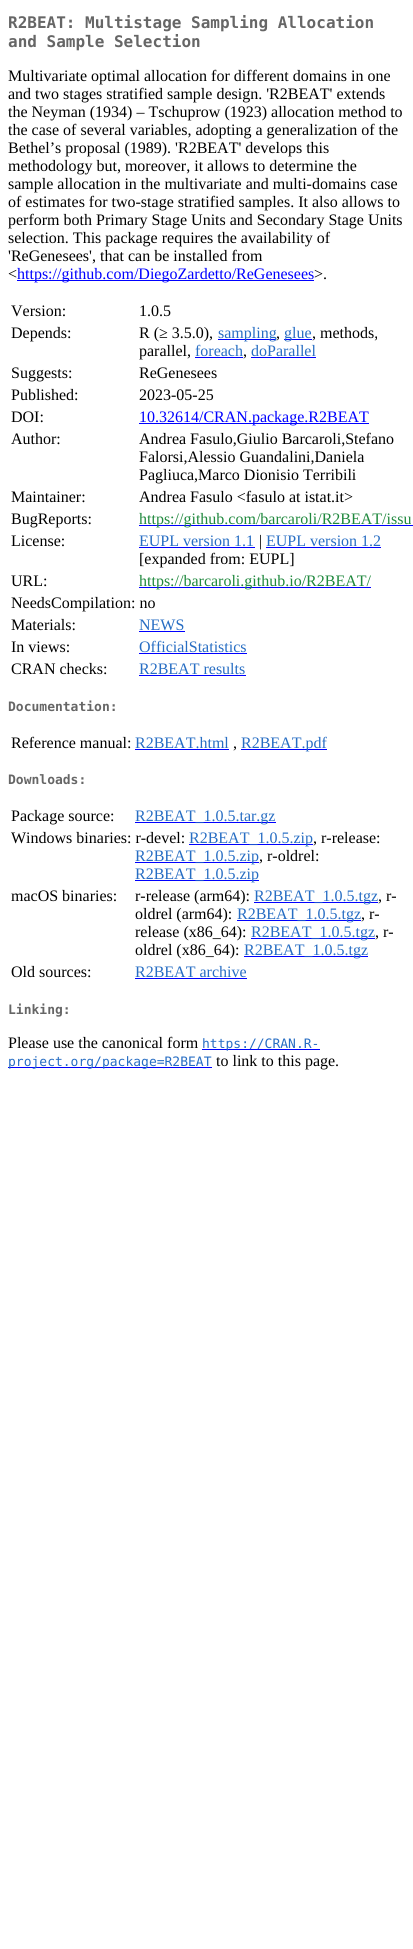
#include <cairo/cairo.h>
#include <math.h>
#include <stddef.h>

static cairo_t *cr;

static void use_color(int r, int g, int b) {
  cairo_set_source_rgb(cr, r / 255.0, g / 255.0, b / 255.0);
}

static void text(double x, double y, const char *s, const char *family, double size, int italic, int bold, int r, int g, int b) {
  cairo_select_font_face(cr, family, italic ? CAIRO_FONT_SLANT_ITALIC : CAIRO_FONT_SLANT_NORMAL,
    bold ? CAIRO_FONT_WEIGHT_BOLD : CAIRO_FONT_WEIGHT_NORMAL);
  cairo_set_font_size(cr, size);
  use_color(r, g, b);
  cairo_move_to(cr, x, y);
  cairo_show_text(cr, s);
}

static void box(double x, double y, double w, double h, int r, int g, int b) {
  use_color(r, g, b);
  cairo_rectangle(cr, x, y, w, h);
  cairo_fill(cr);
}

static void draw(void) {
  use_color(255, 255, 255);
  cairo_paint(cr);
  box(17, 280, 297, 1, 0, 0, 255);
  box(218, 339, 58, 1, 0, 0, 255);
  box(284, 339, 28, 1, 0, 0, 255);
  box(195, 357, 48, 1, 0, 0, 255);
  box(251, 357, 65, 1, 0, 0, 255);
  box(139, 423, 230, 1, 0, 0, 255);
  box(139, 525, 274, 1, 0, 0, 255);
  box(139, 547, 116, 1, 0, 0, 255);
  box(266, 547, 115, 1, 0, 0, 255);
  box(139, 587, 232, 1, 0, 0, 255);
  box(139, 631, 46, 1, 0, 0, 255);
  box(139, 653, 108, 1, 0, 0, 255);
  box(139, 675, 107, 1, 0, 0, 255);
  box(135, 749, 94, 1, 0, 0, 255);
  box(241, 749, 86, 1, 0, 0, 255);
  box(135, 822, 141, 1, 0, 0, 255);
  box(189, 844, 124, 1, 0, 0, 255);
  box(135, 862, 124, 1, 0, 0, 255);
  box(135, 880, 124, 1, 0, 0, 255);
  box(254, 902, 124, 1, 0, 0, 255);
  box(237, 920, 124, 1, 0, 0, 255);
  box(251, 938, 124, 1, 0, 0, 255);
  box(244, 956, 124, 1, 0, 0, 255);
  box(135, 978, 112, 1, 0, 0, 255);
  box(202, 1049, 118, 1, 0, 0, 255);
  box(8, 1067, 204, 1, 0, 0, 255);
  text(8, 28, "R2BEAT: Multistage Sampling Allocation", "DejaVu Sans Mono", 16, 0, 1, 102, 102, 102);
  text(8, 47, "and Sample Selection", "DejaVu Sans Mono", 16, 0, 1, 102, 102, 102);
  text(8, 81, "Multivariate optimal allocation for different domains in one", "Liberation Serif", 16, 0, 0, 0, 0, 0);
  text(8, 99, "and two stages stratified sample design. 'R2BEAT' extends", "Liberation Serif", 16, 0, 0, 0, 0, 0);
  text(8, 117, "the Neyman (1934) – Tschuprow (1923) allocation method to", "Liberation Serif", 16, 0, 0, 0, 0, 0);
  text(8, 135, "the case of several variables, adopting a generalization of the", "Liberation Serif", 16, 0, 0, 0, 0, 0);
  text(8, 153, "Bethel’s proposal (1989). 'R2BEAT' develops this", "Liberation Serif", 16, 0, 0, 0, 0, 0);
  text(8, 171, "methodology but, moreover, it allows to determine the", "Liberation Serif", 16, 0, 0, 0, 0, 0);
  text(8, 189, "sample allocation in the multivariate and multi-domains case", "Liberation Serif", 16, 0, 0, 0, 0, 0);
  text(8, 207, "of estimates for two-stage stratified samples. It also allows to", "Liberation Serif", 16, 0, 0, 0, 0, 0);
  text(8, 225, "perform both Primary Stage Units and Secondary Stage Units", "Liberation Serif", 16, 0, 0, 0, 0, 0);
  text(8, 243, "selection. This package requires the availability of", "Liberation Serif", 16, 0, 0, 0, 0, 0);
  text(8, 261, "'ReGenesees', that can be installed from", "Liberation Serif", 16, 0, 0, 0, 0, 0);
  text(8, 279, "<", "Liberation Serif", 16, 0, 0, 0, 0, 0);
  text(17, 279, "https://github.com/DiegoZardetto/ReGenesees", "Liberation Serif", 16, 0, 0, 0, 0, 255);
  text(314, 279, ">.", "Liberation Serif", 16, 0, 0, 0, 0, 0);
  text(11, 316, "Version:", "Liberation Serif", 16, 0, 0, 0, 0, 0);
  text(139, 316, "1.0.5", "Liberation Serif", 16, 0, 0, 0, 0, 0);
  text(11, 338, "Depends:", "Liberation Serif", 16, 0, 0, 0, 0, 0);
  text(139, 338, "R (≥ 3.5.0),", "Liberation Serif", 16, 0, 0, 0, 0, 0);
  text(218, 338, "sampling", "Liberation Serif", 16, 0, 0, 39, 109, 195);
  text(276, 338, ",", "Liberation Serif", 16, 0, 0, 0, 0, 0);
  text(284, 338, "glue", "Liberation Serif", 16, 0, 0, 39, 109, 195);
  text(312, 338, ", methods,", "Liberation Serif", 16, 0, 0, 0, 0, 0);
  text(139, 356, "parallel,", "Liberation Serif", 16, 0, 0, 0, 0, 0);
  text(195, 356, "foreach", "Liberation Serif", 16, 0, 0, 39, 109, 195);
  text(243, 356, ",", "Liberation Serif", 16, 0, 0, 0, 0, 0);
  text(251, 356, "doParallel", "Liberation Serif", 16, 0, 0, 39, 109, 195);
  text(11, 378, "Suggests:", "Liberation Serif", 16, 0, 0, 0, 0, 0);
  text(139, 378, "ReGenesees", "Liberation Serif", 16, 0, 0, 0, 0, 0);
  text(11, 400, "Published:", "Liberation Serif", 16, 0, 0, 0, 0, 0);
  text(139, 400, "2023-05-25", "Liberation Serif", 16, 0, 0, 0, 0, 0);
  text(11, 422, "DOI:", "Liberation Serif", 16, 0, 0, 0, 0, 0);
  text(139, 422, "10.32614/CRAN.package.R2BEAT", "Liberation Serif", 16, 0, 0, 0, 0, 255);
  text(11, 444, "Author:", "Liberation Serif", 16, 0, 0, 0, 0, 0);
  text(139, 444, "Andrea Fasulo,Giulio Barcaroli,Stefano", "Liberation Serif", 16, 0, 0, 0, 0, 0);
  text(139, 462, "Falorsi,Alessio Guandalini,Daniela", "Liberation Serif", 16, 0, 0, 0, 0, 0);
  text(139, 480, "Pagliuca,Marco Dionisio Terribili", "Liberation Serif", 16, 0, 0, 0, 0, 0);
  text(11, 502, "Maintainer:", "Liberation Serif", 16, 0, 0, 0, 0, 0);
  text(139, 502, "Andrea Fasulo <fasulo at istat.it>", "Liberation Serif", 16, 0, 0, 0, 0, 0);
  text(11, 524, "BugReports:", "Liberation Serif", 16, 0, 0, 0, 0, 0);
  text(139, 524, "https://github.com/barcaroli/R2BEAT/issu", "Liberation Serif", 16, 0, 0, 31, 136, 61);
  text(11, 546, "License:", "Liberation Serif", 16, 0, 0, 0, 0, 0);
  text(139, 546, "EUPL version 1.1", "Liberation Serif", 16, 0, 0, 39, 109, 195);
  text(259, 546, "|", "Liberation Serif", 16, 0, 0, 0, 0, 0);
  text(266, 546, "EUPL version 1.2", "Liberation Serif", 16, 0, 0, 39, 109, 195);
  text(139, 564, "[expanded from: EUPL]", "Liberation Serif", 16, 0, 0, 0, 0, 0);
  text(11, 586, "URL:", "Liberation Serif", 16, 0, 0, 0, 0, 0);
  text(139, 586, "https://barcaroli.github.io/R2BEAT/", "Liberation Serif", 16, 0, 0, 31, 136, 61);
  text(11, 608, "NeedsCompilation: no", "Liberation Serif", 16, 0, 0, 0, 0, 0);
  text(11, 630, "Materials:", "Liberation Serif", 16, 0, 0, 0, 0, 0);
  text(139, 630, "NEWS", "Liberation Serif", 16, 0, 0, 39, 109, 195);
  text(11, 652, "In views:", "Liberation Serif", 16, 0, 0, 0, 0, 0);
  text(139, 652, "OfficialStatistics", "Liberation Serif", 16, 0, 0, 39, 109, 195);
  text(11, 674, "CRAN checks:", "Liberation Serif", 16, 0, 0, 0, 0, 0);
  text(139, 674, "R2BEAT results", "Liberation Serif", 16, 0, 0, 39, 109, 195);
  text(8, 711, "Documentation:", "DejaVu Sans Mono", 13, 0, 1, 102, 102, 102);
  text(11, 748, "Reference manual:", "Liberation Serif", 16, 0, 0, 0, 0, 0);
  text(135, 748, "R2BEAT.html", "Liberation Serif", 16, 0, 0, 39, 109, 195);
  text(233, 748, ",", "Liberation Serif", 16, 0, 0, 0, 0, 0);
  text(241, 748, "R2BEAT.pdf", "Liberation Serif", 16, 0, 0, 39, 109, 195);
  text(8, 784, "Downloads:", "DejaVu Sans Mono", 13, 0, 1, 102, 102, 102);
  text(11, 821, "Package source:", "Liberation Serif", 16, 0, 0, 0, 0, 0);
  text(135, 821, "R2BEAT_1.0.5.tar.gz", "Liberation Serif", 16, 0, 0, 39, 109, 195);
  text(11, 843, "Windows binaries: r-devel:", "Liberation Serif", 16, 0, 0, 0, 0, 0);
  text(189, 843, "R2BEAT_1.0.5.zip", "Liberation Serif", 16, 0, 0, 39, 109, 195);
  text(313, 843, ", r-release:", "Liberation Serif", 16, 0, 0, 0, 0, 0);
  text(135, 861, "R2BEAT_1.0.5.zip", "Liberation Serif", 16, 0, 0, 39, 109, 195);
  text(259, 861, ", r-oldrel:", "Liberation Serif", 16, 0, 0, 0, 0, 0);
  text(135, 879, "R2BEAT_1.0.5.zip", "Liberation Serif", 16, 0, 0, 39, 109, 195);
  text(11, 901, "macOS binaries:", "Liberation Serif", 16, 0, 0, 0, 0, 0);
  text(135, 901, "r-release (arm64):", "Liberation Serif", 16, 0, 0, 0, 0, 0);
  text(254, 901, "R2BEAT_1.0.5.tgz", "Liberation Serif", 16, 0, 0, 39, 109, 195);
  text(378, 901, ", r-", "Liberation Serif", 16, 0, 0, 0, 0, 0);
  text(135, 919, "oldrel (arm64):", "Liberation Serif", 16, 0, 0, 0, 0, 0);
  text(237, 919, "R2BEAT_1.0.5.tgz", "Liberation Serif", 16, 0, 0, 39, 109, 195);
  text(361, 919, ", r-", "Liberation Serif", 16, 0, 0, 0, 0, 0);
  text(135, 937, "release (x86_64):", "Liberation Serif", 16, 0, 0, 0, 0, 0);
  text(251, 937, "R2BEAT_1.0.5.tgz", "Liberation Serif", 16, 0, 0, 39, 109, 195);
  text(375, 937, ", r-", "Liberation Serif", 16, 0, 0, 0, 0, 0);
  text(135, 955, "oldrel (x86_64):", "Liberation Serif", 16, 0, 0, 0, 0, 0);
  text(244, 955, "R2BEAT_1.0.5.tgz", "Liberation Serif", 16, 0, 0, 39, 109, 195);
  text(11, 977, "Old sources:", "Liberation Serif", 16, 0, 0, 0, 0, 0);
  text(135, 977, "R2BEAT archive", "Liberation Serif", 16, 0, 0, 39, 109, 195);
  text(8, 1014, "Linking:", "DejaVu Sans Mono", 13, 0, 1, 102, 102, 102);
  text(8, 1048, "Please use the canonical form", "Liberation Serif", 16, 0, 0, 0, 0, 0);
  text(202, 1048, "https://CRAN.R-", "DejaVu Sans Mono", 13, 0, 0, 39, 109, 195);
  text(8, 1066, "project.org/package=R2BEAT", "DejaVu Sans Mono", 13, 0, 0, 39, 109, 195);
  text(216, 1066, "to link to this page.", "Liberation Serif", 16, 0, 0, 0, 0, 0);
}

int main(void) {
  cairo_surface_t *surface = cairo_image_surface_create(CAIRO_FORMAT_RGB24, 413, 1949);
  cr = cairo_create(surface);
  cairo_font_options_t *options = cairo_font_options_create();
  cairo_font_options_set_hint_metrics(options, CAIRO_HINT_METRICS_OFF);
  cairo_font_options_set_hint_style(options, CAIRO_HINT_STYLE_NONE);
  cairo_set_font_options(cr, options);
  cairo_set_miter_limit(cr, 4);
  draw();
  cairo_surface_write_to_png(surface, "out.png");
  cairo_font_options_destroy(options);
  cairo_destroy(cr);
  cairo_surface_destroy(surface);
  return 0;
}
